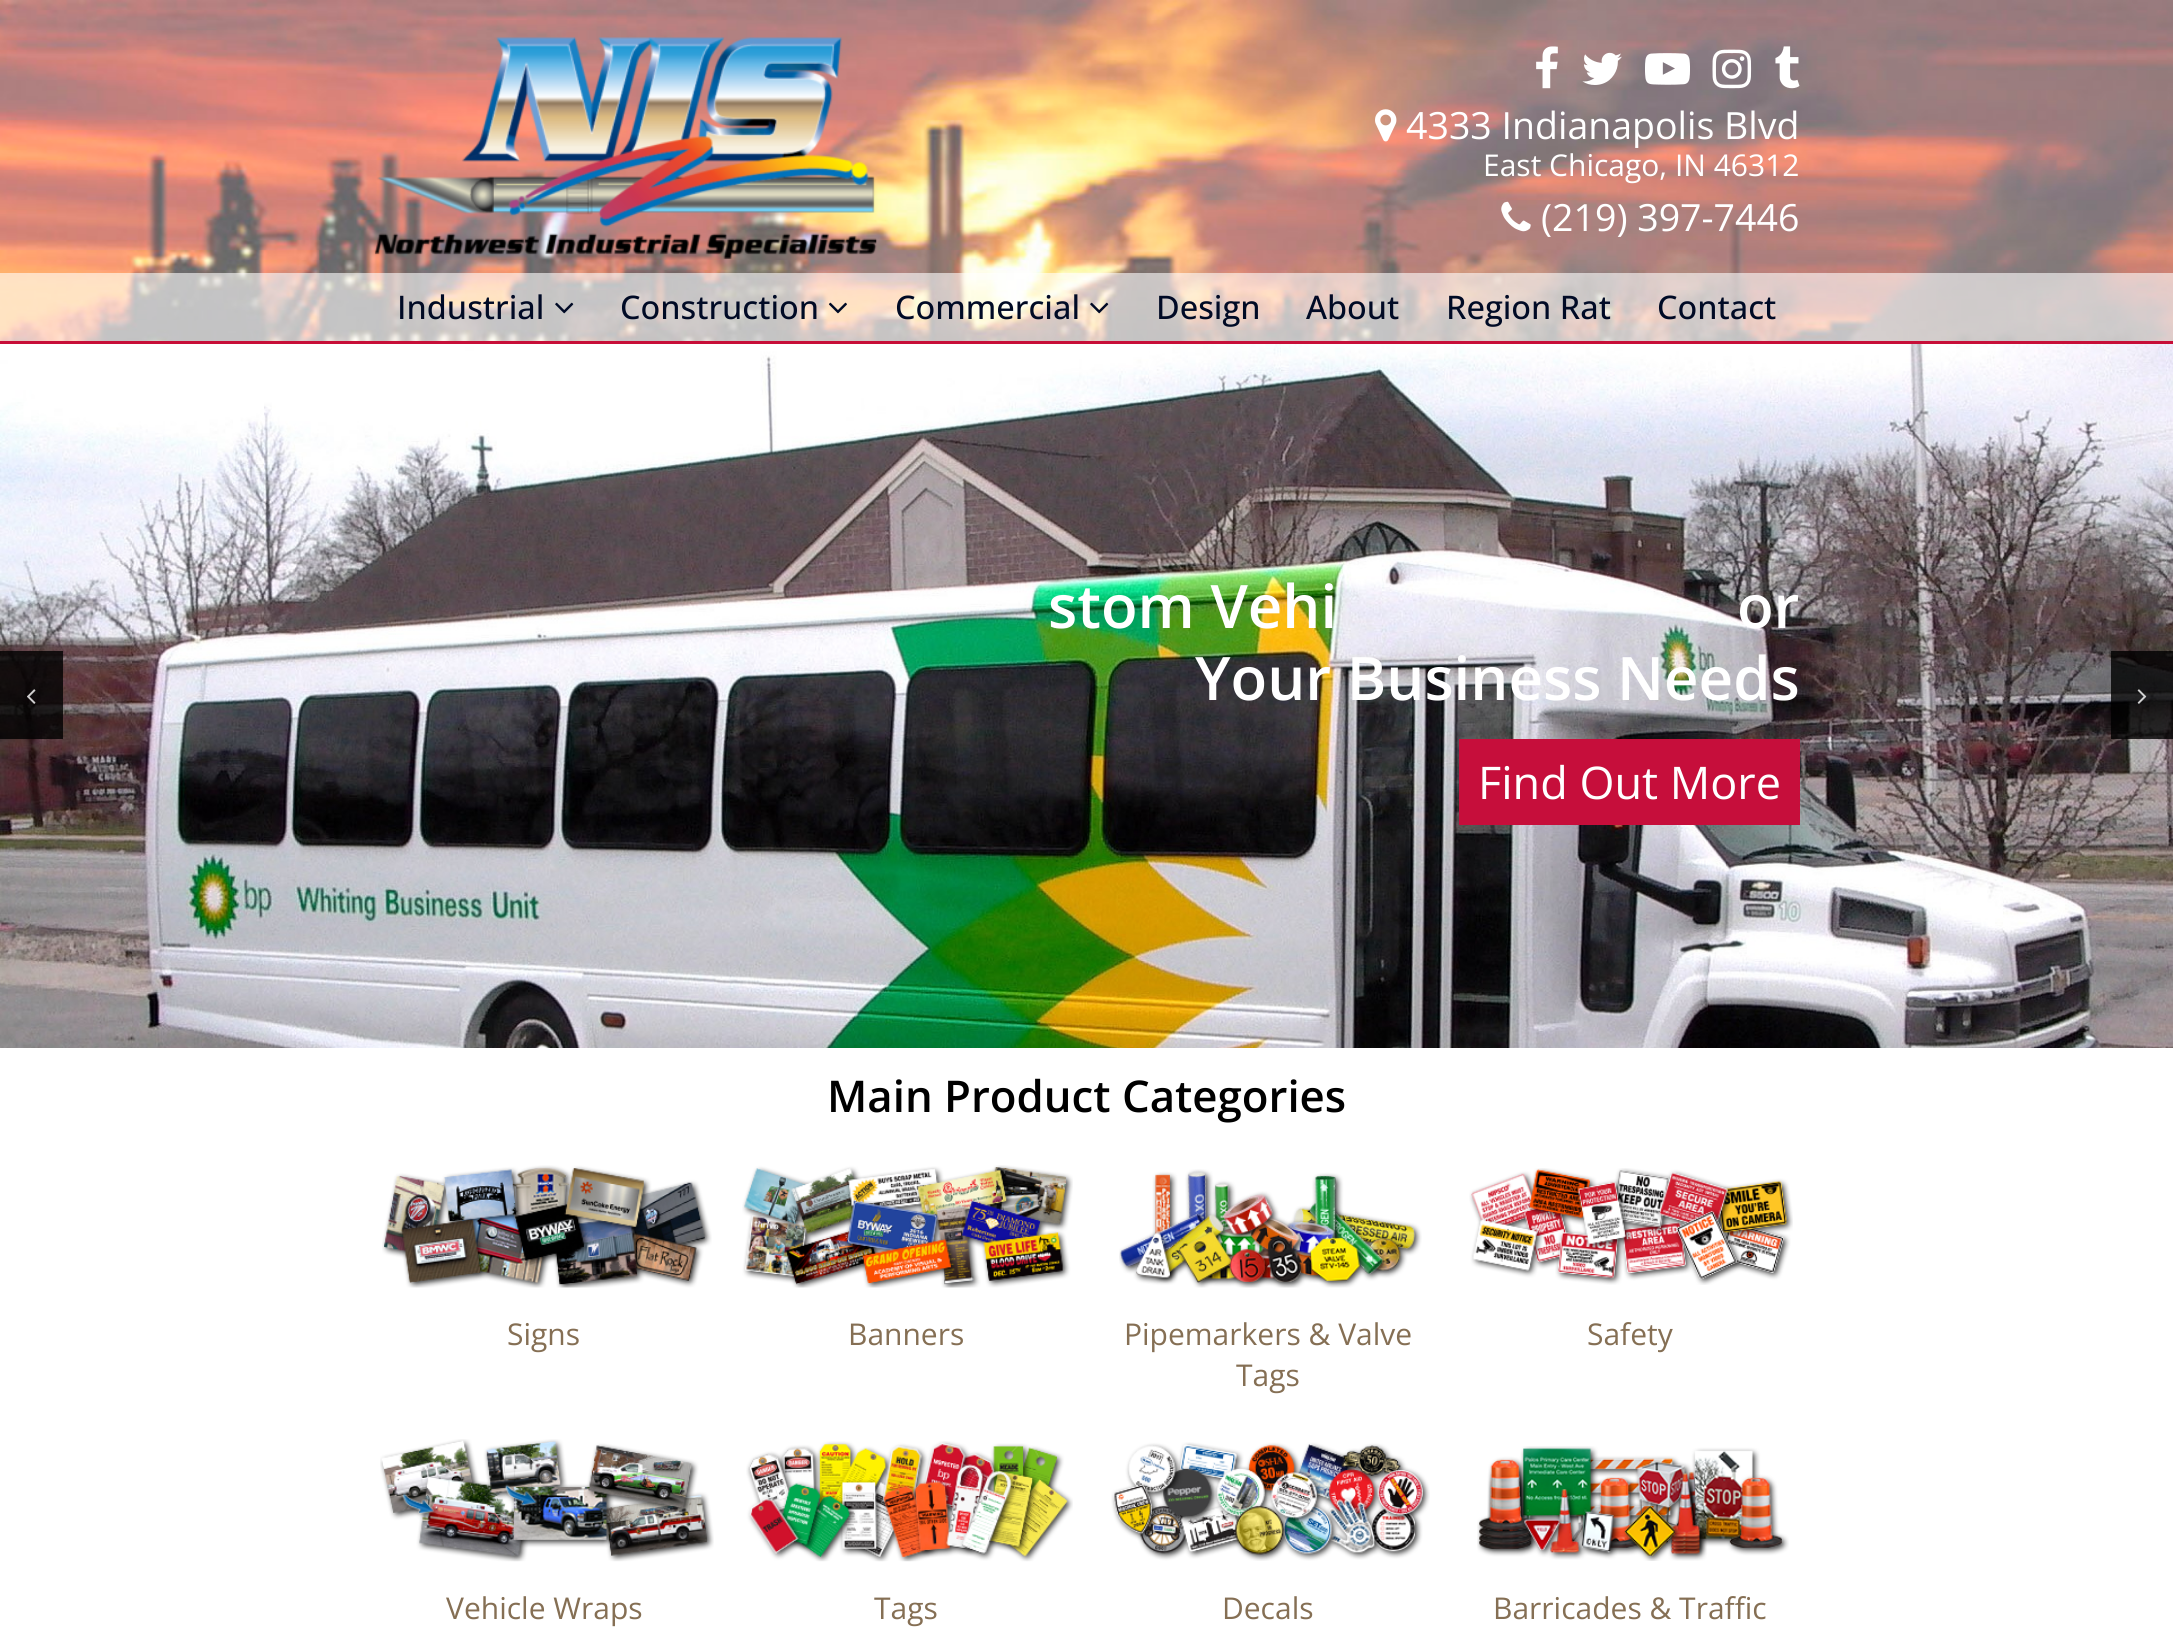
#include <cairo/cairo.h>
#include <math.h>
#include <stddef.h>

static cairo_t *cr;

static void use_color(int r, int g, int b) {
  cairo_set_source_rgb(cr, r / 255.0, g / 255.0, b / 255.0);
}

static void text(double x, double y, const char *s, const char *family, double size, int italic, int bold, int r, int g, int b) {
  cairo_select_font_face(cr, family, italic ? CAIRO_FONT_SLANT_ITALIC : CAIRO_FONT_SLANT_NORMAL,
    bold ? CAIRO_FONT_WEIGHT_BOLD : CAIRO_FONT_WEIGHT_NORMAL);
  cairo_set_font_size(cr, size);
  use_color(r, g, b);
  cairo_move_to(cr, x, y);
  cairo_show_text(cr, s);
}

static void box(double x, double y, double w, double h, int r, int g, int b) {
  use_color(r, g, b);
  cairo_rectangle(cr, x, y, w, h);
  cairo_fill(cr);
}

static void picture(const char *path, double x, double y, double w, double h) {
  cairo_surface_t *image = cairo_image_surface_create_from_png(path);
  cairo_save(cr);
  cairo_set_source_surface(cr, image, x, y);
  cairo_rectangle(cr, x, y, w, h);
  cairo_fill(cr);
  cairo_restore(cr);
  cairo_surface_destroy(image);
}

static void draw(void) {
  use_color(255, 255, 255);
  cairo_paint(cr);
  picture("img_01.png", 0, 0, 2173, 341);
  box(0, 341, 2173, 3, 199, 14, 56);
  picture("img_02.png", 374, 37, 503, 222);
  picture("img_03.png", 1536, 46, 22, 43);
  picture("img_04.png", 1582, 52, 40, 33);
  picture("img_05.png", 1645, 53, 45, 32);
  picture("img_06.png", 1712, 49, 40, 40);
  picture("img_07.png", 1775, 46, 25, 43);
  picture("img_08.png", 1375, 109, 22, 33);
  picture("img_09.png", 1501, 201, 30, 31);
  cairo_set_source_rgba(cr, 1, 1, 1, 0.6);
  cairo_rectangle(cr, 0, 273, 2173, 68);
  cairo_fill(cr);
  picture("img_10.png", 555, 302, 19, 12);
  picture("img_11.png", 828, 302, 19, 12);
  picture("img_12.png", 1090, 302, 19, 12);
  picture("img_13.png", 0, 344, 2173, 704);
  box(1459, 739, 341, 86, 198, 14, 59);
  cairo_set_source_rgba(cr, 0, 0, 0, 0.8);
  cairo_rectangle(cr, 0, 651, 63, 88);
  cairo_fill(cr);
  picture("img_14.png", 27, 689, 9, 15);
  cairo_rectangle(cr, 2111, 651, 62, 88);
  cairo_fill(cr);
  picture("img_15.png", 2137, 689, 10, 15);
  picture("img_16.png", 382, 1165, 330, 123);
  picture("img_17.png", 742, 1165, 331, 123);
  picture("img_18.png", 1119, 1169, 303, 119);
  picture("img_19.png", 1469, 1168, 324, 117);
  picture("img_20.png", 380, 1439, 334, 123);
  picture("img_21.png", 746, 1441, 327, 121);
  picture("img_22.png", 1111, 1442, 319, 119);
  picture("img_23.png", 1477, 1446, 312, 115);
  text(1406, 139, "4333 Indianapolis Blvd", "Open Sans", 37.5, 0, 0, 255, 255, 255);
  text(1483, 176, "East Chicago, IN 46312", "Open Sans", 30, 0, 0, 255, 255, 255);
  text(1541, 231, "(219) 397-7446", "Open Sans", 37.5, 0, 0, 255, 255, 255);
  text(397, 319, "Industrial", "Open Sans Medium", 32.5, 0, 0, 0, 10, 37);
  text(620, 319, "Construction", "Open Sans Medium", 32.5, 0, 0, 0, 10, 37);
  text(895, 319, "Commercial", "Open Sans Medium", 32.5, 0, 0, 0, 10, 37);
  text(1156, 319, "Design", "Open Sans Medium", 32.5, 0, 0, 0, 10, 37);
  text(1306, 319, "About", "Open Sans Medium", 32.5, 0, 0, 0, 10, 37);
  text(1446, 319, "Region Rat", "Open Sans Medium", 32.5, 0, 0, 0, 10, 37);
  text(1657, 319, "Contact", "Open Sans Medium", 32.5, 0, 0, 0, 10, 37);
  text(1048, 628, "stom Vehi", "Open Sans SemiBold", 60, 0, 0, 255, 255, 255);
  text(1737, 628, "or", "Open Sans SemiBold", 60, 0, 0, 255, 255, 255);
  text(1195, 700, "Your Business Needs", "Open Sans SemiBold", 60, 0, 0, 255, 255, 255);
  text(1478, 799, "Find Out More", "Open Sans", 45, 0, 0, 255, 255, 255);
  text(827, 1112, "Main Product Categories", "Open Sans SemiBold", 43.75, 0, 0, 0, 0, 0);
  text(507, 1345, "Signs", "Open Sans", 30, 0, 0, 133, 111, 84);
  text(848, 1345, "Banners", "Open Sans", 30, 0, 0, 133, 111, 84);
  text(1124, 1345, "Pipemarkers & Valve", "Open Sans", 30, 0, 0, 133, 111, 84);
  text(1236, 1386, "Tags", "Open Sans", 30, 0, 0, 133, 111, 84);
  text(1587, 1345, "Safety", "Open Sans", 30, 0, 0, 133, 111, 84);
  text(446, 1619, "Vehicle Wraps", "Open Sans", 30, 0, 0, 133, 111, 84);
  text(874, 1619, "Tags", "Open Sans", 30, 0, 0, 133, 111, 84);
  text(1222, 1619, "Decals", "Open Sans", 30, 0, 0, 133, 111, 84);
  text(1493, 1619, "Barricades & Traffic", "Open Sans", 30, 0, 0, 133, 111, 84);
}

int main(void) {
  cairo_surface_t *surface = cairo_image_surface_create(CAIRO_FORMAT_RGB24, 2173, 1634);
  cr = cairo_create(surface);
  cairo_font_options_t *options = cairo_font_options_create();
  cairo_font_options_set_hint_metrics(options, CAIRO_HINT_METRICS_OFF);
  cairo_font_options_set_hint_style(options, CAIRO_HINT_STYLE_NONE);
  cairo_set_font_options(cr, options);
  cairo_set_miter_limit(cr, 4);
  draw();
  cairo_surface_write_to_png(surface, "out.png");
  cairo_font_options_destroy(options);
  cairo_destroy(cr);
  cairo_surface_destroy(surface);
  return 0;
}
